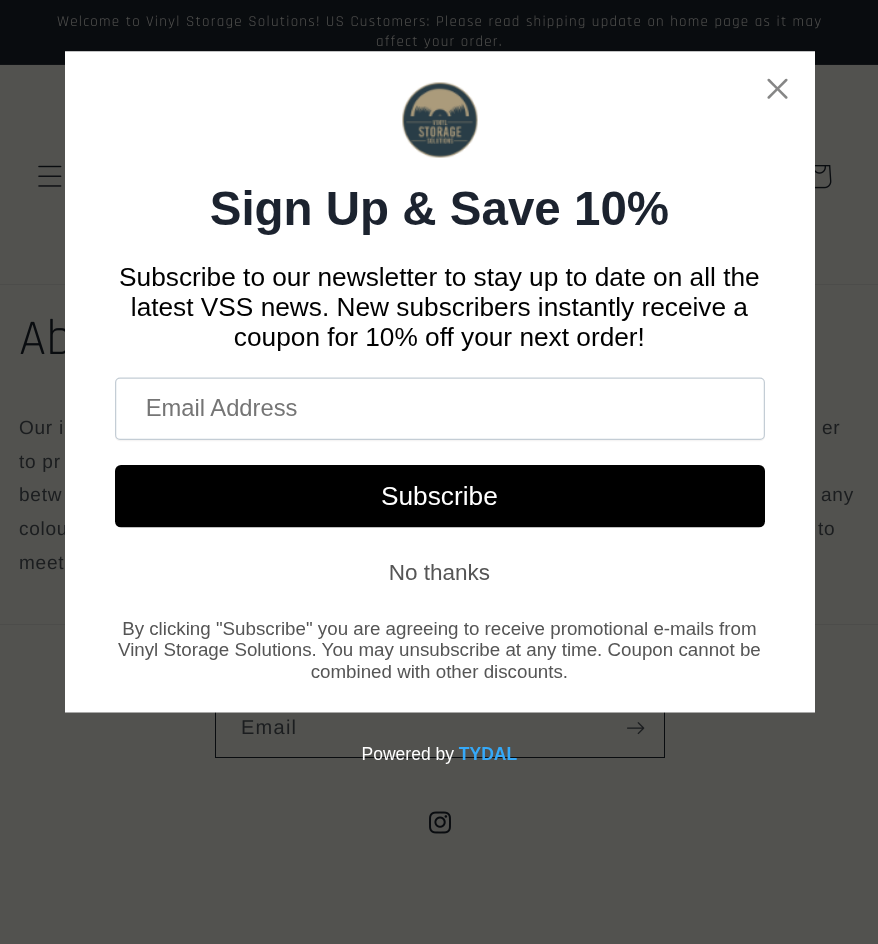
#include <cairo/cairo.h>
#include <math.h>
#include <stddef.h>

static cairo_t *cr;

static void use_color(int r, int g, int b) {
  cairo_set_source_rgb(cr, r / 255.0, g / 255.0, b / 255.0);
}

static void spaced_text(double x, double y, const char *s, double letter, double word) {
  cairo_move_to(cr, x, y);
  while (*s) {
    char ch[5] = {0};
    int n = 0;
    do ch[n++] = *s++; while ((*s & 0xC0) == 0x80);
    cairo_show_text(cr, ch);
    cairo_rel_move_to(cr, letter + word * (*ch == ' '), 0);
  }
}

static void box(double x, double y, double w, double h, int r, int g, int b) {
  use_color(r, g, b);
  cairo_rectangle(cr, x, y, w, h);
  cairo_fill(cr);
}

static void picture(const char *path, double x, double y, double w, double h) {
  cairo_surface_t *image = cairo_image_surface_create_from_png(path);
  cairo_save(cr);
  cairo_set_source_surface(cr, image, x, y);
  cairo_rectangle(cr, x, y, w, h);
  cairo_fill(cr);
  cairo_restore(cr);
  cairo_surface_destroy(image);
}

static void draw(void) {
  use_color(248, 249, 240);
  cairo_paint(cr);
  box(0, 0, 878, 64, 28, 35, 47);
  box(0, 64, 878, 1, 46, 52, 62);
  box(0, 284, 878, 1, 230, 232, 225);
  picture("img_02.png", 38, 165, 24, 22);
  picture("img_03.png", 815, 165, 17, 24);
  box(0, 624, 878, 1, 230, 232, 225);
  cairo_rectangle(cr, 215.5, 699.5, 449, 58);
  use_color(28, 35, 47);
  cairo_set_line_width(cr, 1);
  cairo_stroke(cr);
  picture("img_04.png", 627, 722, 18, 13);
  picture("img_05.png", 429, 811, 22, 23);
  cairo_select_font_face(cr, "Rajdhani", CAIRO_FONT_SLANT_NORMAL, CAIRO_FONT_WEIGHT_NORMAL);
  cairo_set_font_size(cr, 15);
  use_color(248, 249, 240);
  spaced_text(57, 26, "Welcome to Vinyl Storage Solutions! US Customers: Please read shipping update on home page as it may", 1.25, 0);
  spaced_text(376, 46, "affect your order.", 1.25, 0);
  cairo_set_font_size(cr, 50);
  use_color(28, 35, 47);
  spaced_text(19, 354, "Ab", 0.75, 0);
  cairo_select_font_face(cr, "Arimo", CAIRO_FONT_SLANT_NORMAL, CAIRO_FONT_WEIGHT_NORMAL);
  cairo_set_font_size(cr, 19);
  use_color(83, 89, 95);
  spaced_text(19, 434, "Our i", 0.75, 0);
  spaced_text(822, 434, "er", 0.75, 0);
  spaced_text(19, 468, "to pr", 0.75, 0);
  spaced_text(19, 501, "betw", 0.75, 0);
  spaced_text(821, 501, "any", 0.75, 0);
  spaced_text(19, 535, "colou", 0.75, 0);
  spaced_text(818, 535, "to", 0.75, 0);
  spaced_text(19, 569, "meet", 0.75, 0);
  cairo_set_font_size(cr, 20);
  spaced_text(241, 734, "Email", 1.25, 0);
  picture("img_01.png", 0, 0, 878, 944);
}

int main(void) {
  cairo_surface_t *surface = cairo_image_surface_create(CAIRO_FORMAT_RGB24, 878, 944);
  cr = cairo_create(surface);
  cairo_font_options_t *options = cairo_font_options_create();
  cairo_font_options_set_hint_metrics(options, CAIRO_HINT_METRICS_OFF);
  cairo_font_options_set_hint_style(options, CAIRO_HINT_STYLE_NONE);
  cairo_set_font_options(cr, options);
  cairo_set_miter_limit(cr, 4);
  draw();
  cairo_surface_write_to_png(surface, "out.png");
  cairo_font_options_destroy(options);
  cairo_destroy(cr);
  cairo_surface_destroy(surface);
  return 0;
}
